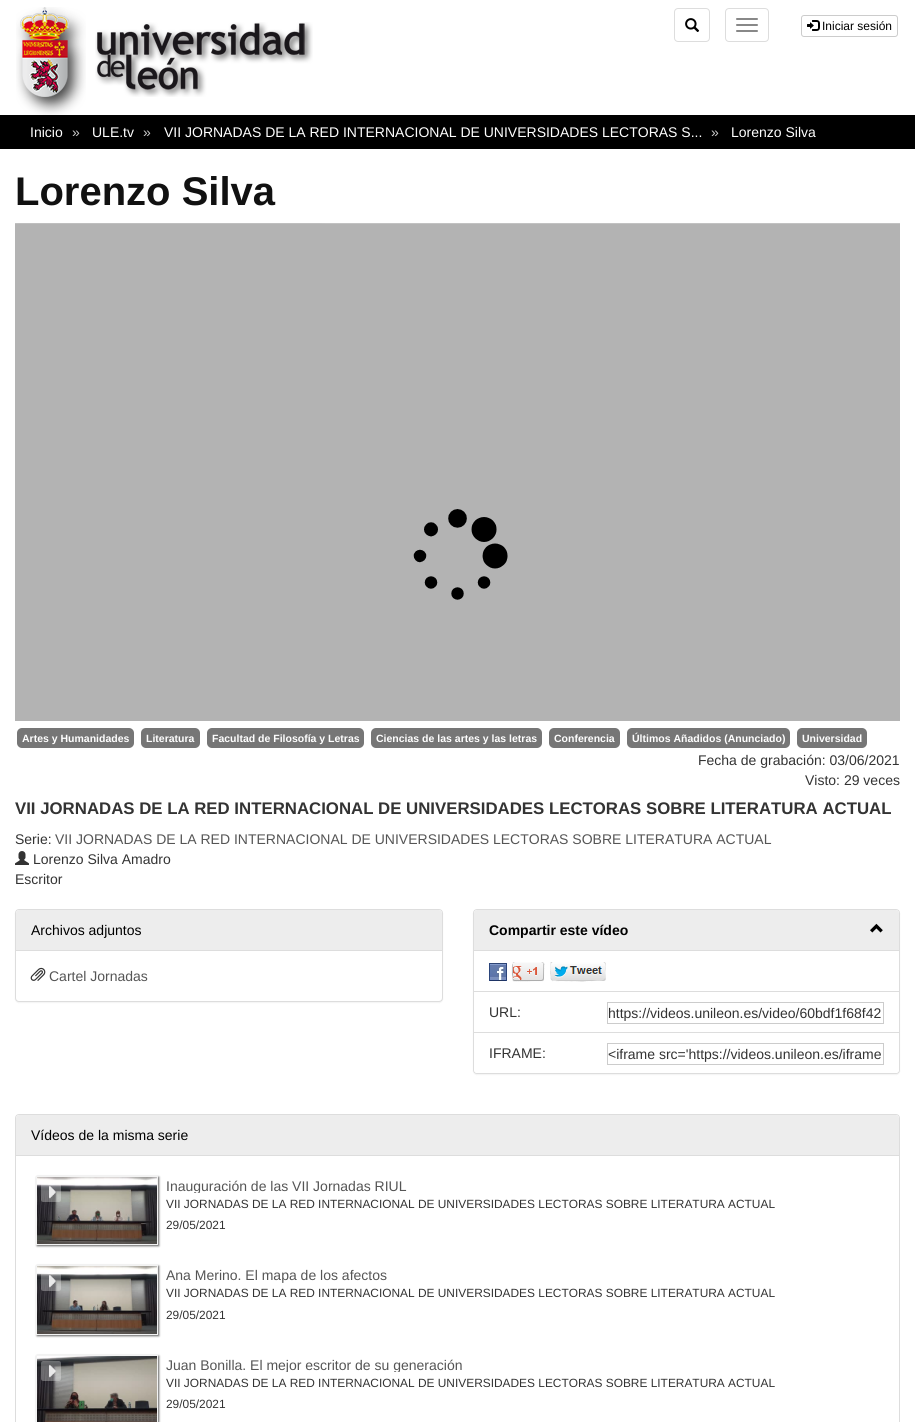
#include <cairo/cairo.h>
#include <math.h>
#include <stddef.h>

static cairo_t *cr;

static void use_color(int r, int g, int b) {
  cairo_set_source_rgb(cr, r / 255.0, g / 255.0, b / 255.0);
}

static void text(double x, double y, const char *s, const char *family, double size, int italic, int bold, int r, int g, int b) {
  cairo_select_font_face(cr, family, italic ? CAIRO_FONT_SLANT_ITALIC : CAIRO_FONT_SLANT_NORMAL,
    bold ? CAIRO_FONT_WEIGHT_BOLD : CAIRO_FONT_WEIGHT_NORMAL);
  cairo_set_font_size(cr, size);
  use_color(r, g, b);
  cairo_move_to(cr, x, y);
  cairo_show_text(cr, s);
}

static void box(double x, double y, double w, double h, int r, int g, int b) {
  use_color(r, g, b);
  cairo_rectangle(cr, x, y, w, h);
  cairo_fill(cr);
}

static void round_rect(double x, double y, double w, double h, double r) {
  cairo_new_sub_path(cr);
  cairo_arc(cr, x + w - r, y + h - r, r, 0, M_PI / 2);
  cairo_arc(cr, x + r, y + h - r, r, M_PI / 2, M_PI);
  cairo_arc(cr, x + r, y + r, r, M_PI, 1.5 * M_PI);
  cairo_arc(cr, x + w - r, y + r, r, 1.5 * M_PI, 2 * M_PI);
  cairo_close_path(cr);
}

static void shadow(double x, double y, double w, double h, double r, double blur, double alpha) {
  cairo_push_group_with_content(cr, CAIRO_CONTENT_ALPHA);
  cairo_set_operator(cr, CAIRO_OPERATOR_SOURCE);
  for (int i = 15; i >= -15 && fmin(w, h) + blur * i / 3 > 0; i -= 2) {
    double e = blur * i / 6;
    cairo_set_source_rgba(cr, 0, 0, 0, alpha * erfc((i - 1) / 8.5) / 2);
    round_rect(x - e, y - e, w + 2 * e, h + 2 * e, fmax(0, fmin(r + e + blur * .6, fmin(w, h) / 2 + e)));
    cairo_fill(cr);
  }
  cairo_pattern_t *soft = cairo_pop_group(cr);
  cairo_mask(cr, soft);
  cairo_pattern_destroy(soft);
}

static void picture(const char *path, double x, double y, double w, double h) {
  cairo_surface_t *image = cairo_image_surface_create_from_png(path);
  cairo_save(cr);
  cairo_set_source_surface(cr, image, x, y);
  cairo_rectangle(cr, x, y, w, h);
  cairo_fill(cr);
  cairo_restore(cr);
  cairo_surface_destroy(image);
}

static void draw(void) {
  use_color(0, 0, 0);
  cairo_paint(cr);
  box(0, 0, 915, 115, 255, 255, 255);
  picture("img_01.png", 16, 7, 70, 108);
  picture("img_02.png", 95, 22, 218, 75);
  round_rect(674.5, 8.5, 35, 33, 3.5);
  use_color(221, 221, 221);
  cairo_set_line_width(cr, 1);
  cairo_stroke(cr);
  picture("img_03.png", 685, 18, 15, 14);
  round_rect(725.5, 8.5, 43, 33, 3.5);
  cairo_stroke(cr);
  use_color(136, 136, 136);
  round_rect(736, 18, 22, 2, 1);
  cairo_fill(cr);
  round_rect(736, 24, 22, 2, 1);
  cairo_fill(cr);
  round_rect(736, 30, 22, 2, 1);
  cairo_fill(cr);
  round_rect(801.5, 15.5, 96, 21, 2.5);
  use_color(204, 204, 204);
  cairo_stroke(cr);
  picture("img_04.png", 807, 20, 13, 11);
  box(0, 149, 915, 1273, 255, 255, 255);
  picture("img_05.png", 15, 223, 885, 498);
  use_color(118, 118, 118);
  round_rect(17, 728, 117, 20, 5);
  cairo_fill(cr);
  round_rect(141, 728, 59, 20, 5);
  cairo_fill(cr);
  round_rect(207, 728, 157, 20, 5);
  cairo_fill(cr);
  round_rect(371, 728, 171, 20, 5);
  cairo_fill(cr);
  round_rect(549, 728, 71, 20, 5);
  cairo_fill(cr);
  round_rect(627, 728, 163, 20, 5);
  cairo_fill(cr);
  round_rect(797, 728, 70, 20, 5);
  cairo_fill(cr);
  picture("img_06.png", 15, 851, 14, 14);
  use_color(0, 0, 0);
  shadow(15, 910, 428, 93, 4, 0.5, 0.05);
  use_color(255, 255, 255);
  round_rect(15.5, 909.5, 427, 92, 3.5);
  cairo_fill_preserve(cr);
  use_color(221, 221, 221);
  cairo_stroke(cr);
  use_color(237, 237, 237);
  cairo_new_path(cr);
  cairo_move_to(cr, 19, 910);
  cairo_line_to(cr, 439, 910);
  cairo_curve_to(cr, 440.5, 910, 442, 911.5, 442, 913);
  cairo_line_to(cr, 442, 951);
  cairo_line_to(cr, 16, 951);
  cairo_line_to(cr, 16, 913);
  cairo_curve_to(cr, 16, 911.5, 17.5, 910, 19, 910);
  cairo_close_path(cr);
  cairo_fill(cr);
  box(16, 950, 426, 1, 221, 221, 221);
  picture("img_07.png", 30, 967, 16, 14);
  use_color(0, 0, 0);
  shadow(473, 910, 427, 165, 4, 0.5, 0.05);
  use_color(255, 255, 255);
  round_rect(473.5, 909.5, 426, 164, 3.5);
  cairo_fill_preserve(cr);
  use_color(221, 221, 221);
  cairo_stroke(cr);
  use_color(237, 237, 237);
  cairo_new_path(cr);
  cairo_move_to(cr, 477, 910);
  cairo_line_to(cr, 896, 910);
  cairo_curve_to(cr, 897.5, 910, 899, 911.5, 899, 913);
  cairo_line_to(cr, 899, 951);
  cairo_line_to(cr, 474, 951);
  cairo_line_to(cr, 474, 913);
  cairo_curve_to(cr, 474, 911.5, 475.5, 910, 477, 910);
  cairo_close_path(cr);
  cairo_fill(cr);
  box(474, 950, 425, 1, 221, 221, 221);
  picture("img_08.png", 870, 923, 13, 10);
  box(474, 991, 425, 1, 221, 221, 221);
  picture("img_09.png", 489, 963, 18, 18);
  picture("img_10.png", 511, 962, 34, 20);
  picture("img_11.png", 550, 962, 56, 20);
  cairo_rectangle(cr, 607.5, 1002.5, 276, 21);
  use_color(204, 204, 204);
  cairo_stroke(cr);
  use_color(255, 255, 255);
  cairo_new_path(cr);
  cairo_move_to(cr, 474, 1032);
  cairo_line_to(cr, 899, 1032);
  cairo_line_to(cr, 899, 1070);
  cairo_curve_to(cr, 899, 1071.5, 897.5, 1073, 896, 1073);
  cairo_line_to(cr, 477, 1073);
  cairo_curve_to(cr, 475.5, 1073, 474, 1071.5, 474, 1070);
  cairo_close_path(cr);
  cairo_fill(cr);
  box(474, 1032, 425, 1, 221, 221, 221);
  cairo_rectangle(cr, 607.5, 1043.5, 276, 21);
  use_color(204, 204, 204);
  cairo_stroke(cr);
  round_rect(15.5, 1114.5, 884, 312, 3.5);
  use_color(221, 221, 221);
  cairo_stroke(cr);
  use_color(237, 237, 237);
  cairo_new_path(cr);
  cairo_move_to(cr, 19, 1115);
  cairo_line_to(cr, 896, 1115);
  cairo_curve_to(cr, 897.5, 1115, 899, 1116.5, 899, 1118);
  cairo_line_to(cr, 899, 1156);
  cairo_line_to(cr, 16, 1156);
  cairo_line_to(cr, 16, 1118);
  cairo_curve_to(cr, 16, 1116.5, 17.5, 1115, 19, 1115);
  cairo_close_path(cr);
  cairo_fill(cr);
  box(16, 1155, 883, 1, 221, 221, 221);
  use_color(102, 102, 102);
  shadow(37, 1177, 122, 69, 0, 1, 1);
  box(36, 1176, 122, 69, 243, 243, 243);
  picture("img_12.png", 37, 1177, 120, 67);
  picture("img_13.png", 41, 1184, 20, 18);
  use_color(102, 102, 102);
  shadow(37, 1266, 122, 70, 0, 1, 1);
  box(36, 1265, 122, 70, 243, 243, 243);
  picture("img_14.png", 37, 1266, 120, 68);
  picture("img_15.png", 41, 1274, 20, 17);
  use_color(102, 102, 102);
  shadow(37, 1356, 122, 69, 0, 1, 1);
  box(36, 1355, 122, 67, 243, 243, 243);
  picture("img_16.png", 37, 1356, 120, 66);
  picture("img_17.png", 41, 1361, 20, 20);
  text(822, 30, "Iniciar sesión", "Liberation Sans", 12, 0, 0, 0, 0, 0);
  text(30, 137, "Inicio", "Liberation Sans", 14, 0, 0, 255, 255, 255);
  text(72, 137, "»", "Liberation Sans", 14, 0, 0, 204, 204, 204);
  text(92, 137, "ULE.tv", "Liberation Sans", 14, 0, 0, 255, 255, 255);
  text(143, 137, "»", "Liberation Sans", 14, 0, 0, 204, 204, 204);
  text(164, 137, "VII JORNADAS DE LA RED INTERNACIONAL DE UNIVERSIDADES LECTORAS S...", "Liberation Sans", 14, 0, 0, 255, 255, 255);
  text(711, 137, "»", "Liberation Sans", 14, 0, 0, 204, 204, 204);
  text(731, 137, "Lorenzo Silva", "Liberation Sans", 14, 0, 0, 255, 255, 255);
  text(15, 205, "Lorenzo Silva", "Liberation Sans", 40, 0, 1, 17, 17, 17);
  text(22, 742, "Artes y Humanidades", "Liberation Sans", 10.5, 0, 1, 255, 255, 255);
  text(146, 742, "Literatura", "Liberation Sans", 10.5, 0, 1, 255, 255, 255);
  text(212, 742, "Facultad de Filosofía y Letras", "Liberation Sans", 10.5, 0, 1, 255, 255, 255);
  text(376, 742, "Ciencias de las artes y las letras", "Liberation Sans", 10.5, 0, 1, 255, 255, 255);
  text(554, 742, "Conferencia", "Liberation Sans", 10.5, 0, 1, 255, 255, 255);
  text(632, 742, "Últimos Añadidos (Anunciado)", "Liberation Sans", 10.5, 0, 1, 255, 255, 255);
  text(802, 742, "Universidad", "Liberation Sans", 10.5, 0, 1, 255, 255, 255);
  text(698, 765, "Fecha de grabación: 03/06/2021", "Liberation Sans", 14, 0, 0, 51, 51, 51);
  text(805, 785, "Visto: 29 veces", "Liberation Sans", 14, 0, 0, 51, 51, 51);
  text(15, 814, "VII JORNADAS DE LA RED INTERNACIONAL DE UNIVERSIDADES LECTORAS SOBRE LITERATURA ACTUAL", "Liberation Sans", 16.8, 0, 1, 51, 51, 51);
  text(15, 844, "Serie:", "Liberation Sans", 14, 0, 0, 51, 51, 51);
  text(55, 844, "VII JORNADAS DE LA RED INTERNACIONAL DE UNIVERSIDADES LECTORAS SOBRE LITERATURA ACTUAL", "Liberation Sans", 14, 0, 0, 85, 85, 85);
  text(33, 864, "Lorenzo Silva Amadro", "Liberation Sans", 14, 0, 0, 51, 51, 51);
  text(15, 884, "Escritor", "Liberation Sans", 14, 0, 0, 51, 51, 51);
  text(31, 935, "Archivos adjuntos", "Liberation Sans", 14, 0, 0, 0, 0, 0);
  text(49, 981, "Cartel Jornadas", "Liberation Sans", 14, 0, 0, 85, 85, 85);
  text(489, 935, "Compartir este vídeo", "Liberation Sans", 14, 0, 1, 0, 0, 0);
  text(489, 1017, "URL:", "Liberation Sans", 14, 0, 0, 51, 51, 51);
  text(608, 1018, "https://videos.unileon.es/video/60bdf1f68f42", "Liberation Sans", 14, 0, 0, 51, 51, 51);
  text(489, 1058, "IFRAME:", "Liberation Sans", 14, 0, 0, 51, 51, 51);
  text(608, 1059, "<iframe src='https://videos.unileon.es/iframe", "Liberation Sans", 14, 0, 0, 51, 51, 51);
  text(31, 1140, "Vídeos de la misma serie", "Liberation Sans", 14, 0, 0, 0, 0, 0);
  cairo_save(cr);
  cairo_rectangle(cr, 166, 1176, 713, 17);
  cairo_clip(cr);
  text(166, 1191, "Inauguración de las VII Jornadas RIUL", "Liberation Sans", 14, 0, 0, 85, 85, 85);
  cairo_restore(cr);
  text(166, 1208, "VII JORNADAS DE LA RED INTERNACIONAL DE UNIVERSIDADES LECTORAS SOBRE LITERATURA ACTUAL", "Liberation Sans", 11.9, 0, 0, 51, 51, 51);
  text(166, 1229, "29/05/2021", "Liberation Sans", 11.9, 0, 0, 51, 51, 51);
  text(166, 1280, "Ana Merino. El mapa de los afectos", "Liberation Sans", 14, 0, 0, 85, 85, 85);
  text(166, 1297, "VII JORNADAS DE LA RED INTERNACIONAL DE UNIVERSIDADES LECTORAS SOBRE LITERATURA ACTUAL", "Liberation Sans", 11.9, 0, 0, 51, 51, 51);
  text(166, 1319, "29/05/2021", "Liberation Sans", 11.9, 0, 0, 51, 51, 51);
  cairo_save(cr);
  cairo_rectangle(cr, 166, 1355, 713, 17);
  cairo_clip(cr);
  text(166, 1370, "Juan Bonilla. El mejor escritor de su generación", "Liberation Sans", 14, 0, 0, 85, 85, 85);
  cairo_restore(cr);
  text(166, 1387, "VII JORNADAS DE LA RED INTERNACIONAL DE UNIVERSIDADES LECTORAS SOBRE LITERATURA ACTUAL", "Liberation Sans", 11.9, 0, 0, 51, 51, 51);
  text(166, 1408, "29/05/2021", "Liberation Sans", 11.9, 0, 0, 51, 51, 51);
}

int main(void) {
  cairo_surface_t *surface = cairo_image_surface_create(CAIRO_FORMAT_RGB24, 915, 1422);
  cr = cairo_create(surface);
  cairo_font_options_t *options = cairo_font_options_create();
  cairo_font_options_set_hint_metrics(options, CAIRO_HINT_METRICS_OFF);
  cairo_font_options_set_hint_style(options, CAIRO_HINT_STYLE_NONE);
  cairo_set_font_options(cr, options);
  cairo_set_miter_limit(cr, 4);
  draw();
  cairo_surface_write_to_png(surface, "out.png");
  cairo_font_options_destroy(options);
  cairo_destroy(cr);
  cairo_surface_destroy(surface);
  return 0;
}
